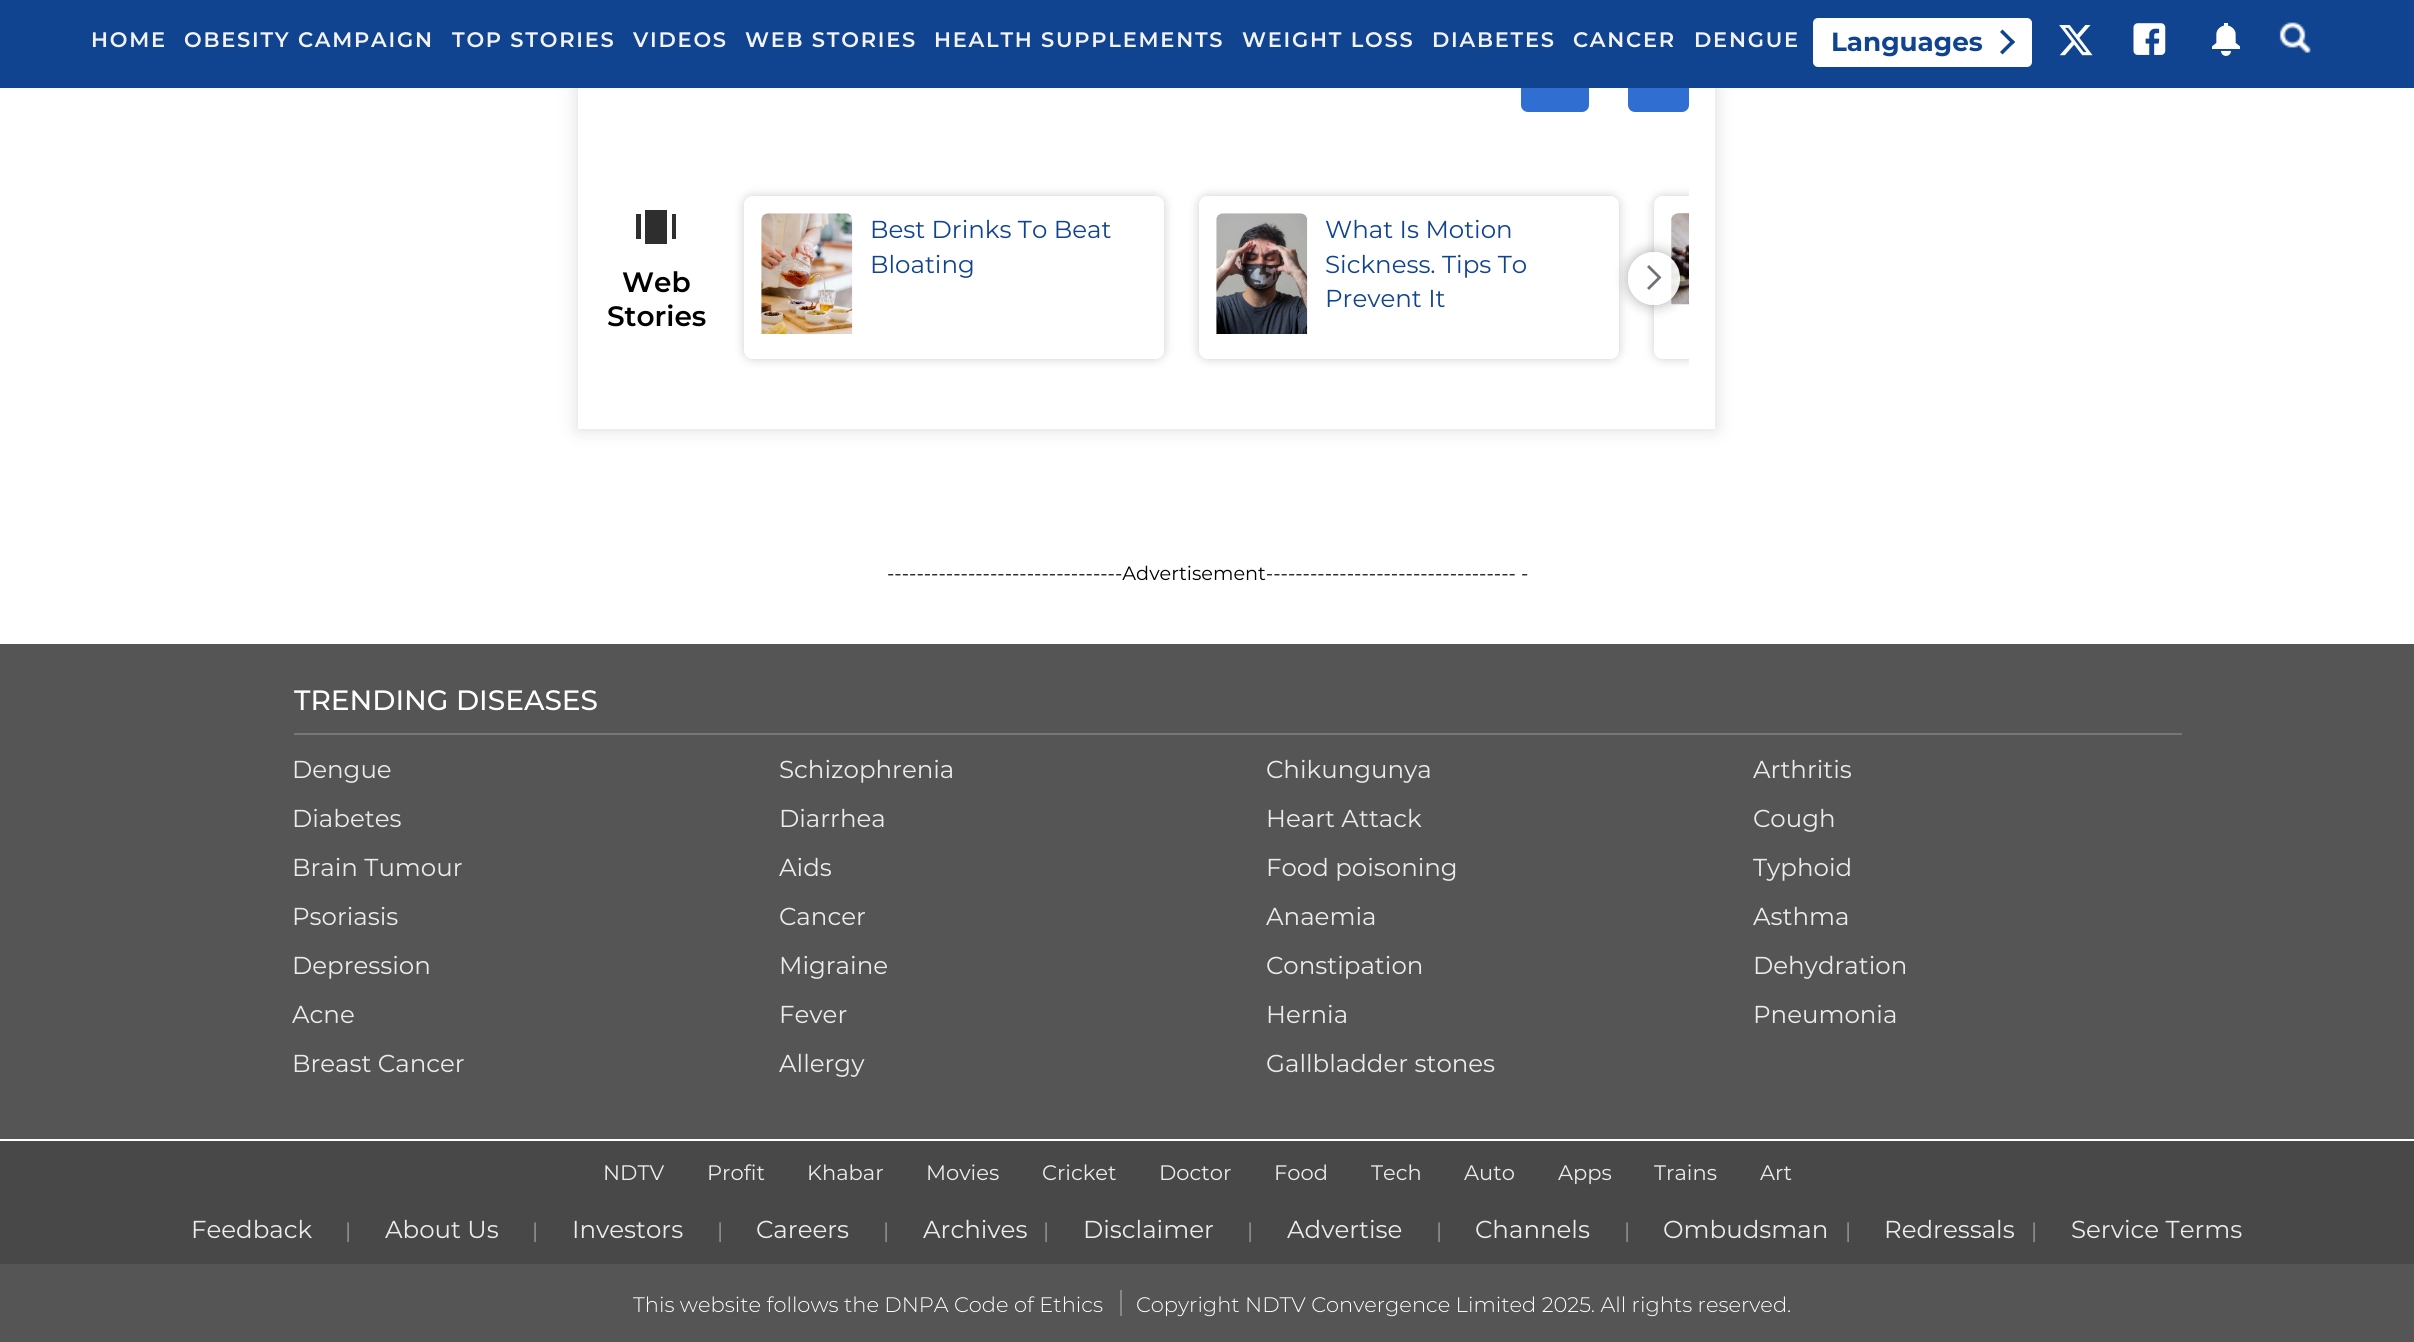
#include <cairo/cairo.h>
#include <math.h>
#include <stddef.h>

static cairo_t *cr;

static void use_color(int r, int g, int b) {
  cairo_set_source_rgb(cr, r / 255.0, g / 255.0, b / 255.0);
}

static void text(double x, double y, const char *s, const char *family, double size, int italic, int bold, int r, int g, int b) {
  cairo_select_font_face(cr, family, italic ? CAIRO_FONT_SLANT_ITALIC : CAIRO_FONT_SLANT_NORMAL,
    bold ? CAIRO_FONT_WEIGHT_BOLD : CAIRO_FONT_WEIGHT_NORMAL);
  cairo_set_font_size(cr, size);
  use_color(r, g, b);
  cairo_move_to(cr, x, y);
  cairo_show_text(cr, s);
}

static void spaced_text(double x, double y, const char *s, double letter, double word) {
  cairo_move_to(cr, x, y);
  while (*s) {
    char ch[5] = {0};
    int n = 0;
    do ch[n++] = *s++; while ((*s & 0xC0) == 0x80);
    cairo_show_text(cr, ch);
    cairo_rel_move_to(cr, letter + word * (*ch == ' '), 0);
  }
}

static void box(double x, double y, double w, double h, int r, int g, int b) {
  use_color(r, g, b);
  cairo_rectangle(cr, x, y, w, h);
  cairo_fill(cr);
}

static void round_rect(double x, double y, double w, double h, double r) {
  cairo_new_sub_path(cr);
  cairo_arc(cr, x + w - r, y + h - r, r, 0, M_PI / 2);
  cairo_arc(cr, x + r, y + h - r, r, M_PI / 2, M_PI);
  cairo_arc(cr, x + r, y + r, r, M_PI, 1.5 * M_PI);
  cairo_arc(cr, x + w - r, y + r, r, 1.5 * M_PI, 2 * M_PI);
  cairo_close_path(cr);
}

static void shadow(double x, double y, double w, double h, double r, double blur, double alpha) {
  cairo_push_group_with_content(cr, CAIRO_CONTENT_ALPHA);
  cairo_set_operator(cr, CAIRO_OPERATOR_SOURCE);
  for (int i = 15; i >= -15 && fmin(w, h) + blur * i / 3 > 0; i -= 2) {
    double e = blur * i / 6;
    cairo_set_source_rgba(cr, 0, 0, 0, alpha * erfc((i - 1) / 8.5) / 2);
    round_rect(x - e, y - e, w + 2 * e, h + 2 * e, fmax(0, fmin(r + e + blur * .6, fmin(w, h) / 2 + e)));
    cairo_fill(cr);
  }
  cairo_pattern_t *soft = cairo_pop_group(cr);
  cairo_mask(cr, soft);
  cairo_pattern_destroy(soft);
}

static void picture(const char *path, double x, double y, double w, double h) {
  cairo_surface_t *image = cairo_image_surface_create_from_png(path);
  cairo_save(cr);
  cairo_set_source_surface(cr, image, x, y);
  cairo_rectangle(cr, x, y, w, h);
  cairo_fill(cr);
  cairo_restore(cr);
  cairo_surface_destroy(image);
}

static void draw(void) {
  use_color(255, 255, 255);
  cairo_paint(cr);
  use_color(219, 219, 219);
  shadow(578, -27, 1137, 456, 0, 9, 1);
  box(578, 88, 1137, 341, 255, 255, 255);
  use_color(48, 110, 209);
  round_rect(1522, 61, 66, 50, 6);
  cairo_fill_preserve(cr);
  cairo_stroke(cr);
  round_rect(1629, 61, 59, 50, 6);
  cairo_fill_preserve(cr);
  cairo_stroke(cr);
  box(0, 0, 2414, 88, 17, 68, 144);
  use_color(255, 255, 255);
  round_rect(1813, 18, 219, 49, 5);
  cairo_fill(cr);
  use_color(17, 68, 144);
  cairo_new_path(cr);
  cairo_move_to(cr, 2002.5, 29.5);
  cairo_line_to(cr, 2015, 42);
  cairo_line_to(cr, 2012.5, 44.5);
  cairo_line_to(cr, 2000, 32);
  cairo_close_path(cr);
  cairo_fill(cr);
  cairo_new_path(cr);
  cairo_move_to(cr, 2012.5, 39.5);
  cairo_line_to(cr, 2015, 42);
  cairo_line_to(cr, 2002.5, 54.5);
  cairo_line_to(cr, 2000, 52);
  cairo_close_path(cr);
  cairo_fill(cr);
  picture("img_01.png", 2059, 25, 34, 31);
  picture("img_02.png", 2133, 23, 33, 32);
  picture("img_03.png", 2212, 23, 28, 33);
  picture("img_04.png", 2279, 22, 32, 31);
  box(645, 210, 22, 34, 46, 46, 46);
  box(636, 214, 5, 25, 46, 46, 46);
  box(672, 214, 4, 25, 46, 46, 46);
  cairo_save(cr);
  cairo_set_fill_rule(cr, CAIRO_FILL_RULE_EVEN_ODD);
  cairo_new_path(cr);
  cairo_move_to(cr, 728, 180);
  cairo_line_to(cr, 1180, 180);
  cairo_line_to(cr, 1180, 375);
  cairo_line_to(cr, 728, 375);
  cairo_close_path(cr);
  cairo_move_to(cr, 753, 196);
  cairo_line_to(cr, 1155, 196);
  cairo_curve_to(cr, 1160, 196, 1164, 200, 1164, 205);
  cairo_line_to(cr, 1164, 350);
  cairo_curve_to(cr, 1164, 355, 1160, 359, 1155, 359);
  cairo_line_to(cr, 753, 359);
  cairo_curve_to(cr, 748, 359, 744, 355, 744, 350);
  cairo_line_to(cr, 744, 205);
  cairo_curve_to(cr, 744, 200, 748, 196, 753, 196);
  cairo_close_path(cr);
  cairo_clip(cr);
  use_color(0, 0, 0);
  shadow(744, 196, 420, 163, 9, 5, 0.2);
  cairo_restore(cr);
  picture("img_05.png", 761, 213, 92, 121);
  cairo_save(cr);
  cairo_set_fill_rule(cr, CAIRO_FILL_RULE_EVEN_ODD);
  cairo_new_path(cr);
  cairo_move_to(cr, 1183, 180);
  cairo_line_to(cr, 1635, 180);
  cairo_line_to(cr, 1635, 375);
  cairo_line_to(cr, 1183, 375);
  cairo_close_path(cr);
  cairo_move_to(cr, 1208, 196);
  cairo_line_to(cr, 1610, 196);
  cairo_curve_to(cr, 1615, 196, 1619, 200, 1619, 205);
  cairo_line_to(cr, 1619, 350);
  cairo_curve_to(cr, 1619, 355, 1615, 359, 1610, 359);
  cairo_line_to(cr, 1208, 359);
  cairo_curve_to(cr, 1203, 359, 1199, 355, 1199, 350);
  cairo_line_to(cr, 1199, 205);
  cairo_curve_to(cr, 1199, 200, 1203, 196, 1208, 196);
  cairo_close_path(cr);
  cairo_clip(cr);
  use_color(0, 0, 0);
  shadow(1199, 196, 420, 163, 9, 5, 0.2);
  cairo_restore(cr);
  picture("img_06.png", 1216, 213, 92, 121);
  cairo_save(cr);
  cairo_rectangle(cr, 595, 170, 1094, 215);
  cairo_clip(cr);
  cairo_set_fill_rule(cr, CAIRO_FILL_RULE_EVEN_ODD);
  cairo_new_path(cr);
  cairo_move_to(cr, 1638, 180);
  cairo_line_to(cr, 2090, 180);
  cairo_line_to(cr, 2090, 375);
  cairo_line_to(cr, 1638, 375);
  cairo_close_path(cr);
  cairo_move_to(cr, 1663, 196);
  cairo_line_to(cr, 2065, 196);
  cairo_curve_to(cr, 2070, 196, 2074, 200, 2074, 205);
  cairo_line_to(cr, 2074, 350);
  cairo_curve_to(cr, 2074, 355, 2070, 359, 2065, 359);
  cairo_line_to(cr, 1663, 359);
  cairo_curve_to(cr, 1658, 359, 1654, 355, 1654, 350);
  cairo_line_to(cr, 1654, 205);
  cairo_curve_to(cr, 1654, 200, 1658, 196, 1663, 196);
  cairo_close_path(cr);
  cairo_clip(cr);
  use_color(0, 0, 0);
  shadow(1654, 196, 420, 163, 9, 5, 0.2);
  cairo_restore(cr);
  picture("img_07.png", 1671, 213, 18, 92);
  cairo_save(cr);
  cairo_rectangle(cr, 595, 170, 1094, 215);
  cairo_clip(cr);
  cairo_set_fill_rule(cr, CAIRO_FILL_RULE_EVEN_ODD);
  cairo_new_path(cr);
  cairo_move_to(cr, 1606, 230);
  cairo_line_to(cr, 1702, 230);
  cairo_line_to(cr, 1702, 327);
  cairo_line_to(cr, 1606, 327);
  cairo_close_path(cr);
  cairo_move_to(cr, 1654, 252);
  cairo_curve_to(cr, 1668.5, 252, 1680, 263.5, 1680, 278);
  cairo_line_to(cr, 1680, 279);
  cairo_curve_to(cr, 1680, 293.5, 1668.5, 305, 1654, 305);
  cairo_curve_to(cr, 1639.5, 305, 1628, 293.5, 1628, 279);
  cairo_line_to(cr, 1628, 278);
  cairo_curve_to(cr, 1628, 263.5, 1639.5, 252, 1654, 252);
  cairo_close_path(cr);
  cairo_clip(cr);
  use_color(0, 0, 0);
  shadow(1628, 252, 52, 53, 26, 7, 0.32);
  cairo_restore(cr);
  cairo_set_source_rgba(cr, 1, 1, 1, 0.9);
  round_rect(1628, 252, 52, 53, 26);
  cairo_fill(cr);
  cairo_new_path(cr);
  cairo_move_to(cr, 1648, 289);
  cairo_line_to(cr, 1659.5, 277.5);
  cairo_line_to(cr, 1648, 266);
  use_color(113, 112, 116);
  cairo_set_line_width(cr, 2.8);
  cairo_stroke(cr);
  box(0, 644, 2414, 495, 85, 85, 85);
  box(294, 733, 1888, 2, 119, 119, 119);
  box(0, 1264, 2414, 78, 85, 85, 85);
  box(0, 1141, 2414, 123, 72, 72, 72);
  box(1120, 1290, 2, 26, 136, 136, 136);
  cairo_select_font_face(cr, "Montserrat SemiBold", CAIRO_FONT_SLANT_NORMAL, CAIRO_FONT_WEIGHT_NORMAL);
  cairo_set_font_size(cr, 21);
  use_color(243, 243, 243);
  spaced_text(91, 47, "HOME", 1.75, 0);
  spaced_text(184, 47, "OBESITY CAMPAIGN", 1.75, 0);
  spaced_text(452, 47, "TOP STORIES", 1.75, 0);
  spaced_text(633, 47, "VIDEOS", 1.75, 0);
  spaced_text(745, 47, "WEB STORIES", 1.75, 0);
  spaced_text(934, 47, "HEALTH SUPPLEMENTS", 1.75, 0);
  spaced_text(1242, 47, "WEIGHT LOSS", 1.75, 0);
  spaced_text(1432, 47, "DIABETES", 1.75, 0);
  spaced_text(1573, 47, "CANCER", 1.75, 0);
  spaced_text(1694, 47, "DENGUE", 1.75, 0);
  text(1831, 51, "Languages", "Montserrat", 26.25, 0, 1, 17, 68, 144);
  text(622, 292, "Web", "Montserrat SemiBold", 28, 0, 0, 0, 0, 0);
  text(607, 326, "Stories", "Montserrat SemiBold", 28, 0, 0, 0, 0, 0);
  text(870, 238, "Best Drinks To Beat", "Montserrat", 24.5, 0, 0, 17, 68, 144);
  text(870, 273, "Bloating", "Montserrat", 24.5, 0, 0, 17, 68, 144);
  text(1325, 238, "What Is Motion", "Montserrat", 24.5, 0, 0, 17, 68, 144);
  text(1325, 273, "Sickness. Tips To", "Montserrat", 24.5, 0, 0, 17, 68, 144);
  text(1325, 307, "Prevent It", "Montserrat", 24.5, 0, 0, 17, 68, 144);
  text(887, 580, "--------------------------------Advertisement---------------------------------- -", "Montserrat", 19.25, 0, 0, 0, 0, 0);
  text(294, 710, "TRENDING DISEASES", "Montserrat Medium", 28, 0, 0, 255, 255, 255);
  text(292, 778, "Dengue", "Montserrat", 24.5, 0, 0, 235, 235, 235);
  text(292, 827, "Diabetes", "Montserrat", 24.5, 0, 0, 235, 235, 235);
  text(292, 876, "Brain Tumour", "Montserrat", 24.5, 0, 0, 235, 235, 235);
  text(292, 925, "Psoriasis", "Montserrat", 24.5, 0, 0, 235, 235, 235);
  text(292, 974, "Depression", "Montserrat", 24.5, 0, 0, 235, 235, 235);
  text(292, 1023, "Acne", "Montserrat", 24.5, 0, 0, 235, 235, 235);
  text(292, 1072, "Breast Cancer", "Montserrat", 24.5, 0, 0, 235, 235, 235);
  text(779, 778, "Schizophrenia", "Montserrat", 24.5, 0, 0, 235, 235, 235);
  text(779, 827, "Diarrhea", "Montserrat", 24.5, 0, 0, 235, 235, 235);
  text(779, 876, "Aids", "Montserrat", 24.5, 0, 0, 235, 235, 235);
  text(779, 925, "Cancer", "Montserrat", 24.5, 0, 0, 235, 235, 235);
  text(779, 974, "Migraine", "Montserrat", 24.5, 0, 0, 235, 235, 235);
  text(779, 1023, "Fever", "Montserrat", 24.5, 0, 0, 235, 235, 235);
  text(779, 1072, "Allergy", "Montserrat", 24.5, 0, 0, 235, 235, 235);
  text(1266, 778, "Chikungunya", "Montserrat", 24.5, 0, 0, 235, 235, 235);
  text(1266, 827, "Heart Attack", "Montserrat", 24.5, 0, 0, 235, 235, 235);
  text(1266, 876, "Food poisoning", "Montserrat", 24.5, 0, 0, 235, 235, 235);
  text(1266, 925, "Anaemia", "Montserrat", 24.5, 0, 0, 235, 235, 235);
  text(1266, 974, "Constipation", "Montserrat", 24.5, 0, 0, 235, 235, 235);
  text(1266, 1023, "Hernia", "Montserrat", 24.5, 0, 0, 235, 235, 235);
  text(1266, 1072, "Gallbladder stones", "Montserrat", 24.5, 0, 0, 235, 235, 235);
  text(1753, 778, "Arthritis", "Montserrat", 24.5, 0, 0, 235, 235, 235);
  text(1753, 827, "Cough", "Montserrat", 24.5, 0, 0, 235, 235, 235);
  text(1753, 876, "Typhoid", "Montserrat", 24.5, 0, 0, 235, 235, 235);
  text(1753, 925, "Asthma", "Montserrat", 24.5, 0, 0, 235, 235, 235);
  text(1753, 974, "Dehydration", "Montserrat", 24.5, 0, 0, 235, 235, 235);
  text(1753, 1023, "Pneumonia", "Montserrat", 24.5, 0, 0, 235, 235, 235);
  text(603, 1180, "NDTV", "Montserrat", 21, 0, 0, 235, 235, 235);
  text(707, 1180, "Profit", "Montserrat", 21, 0, 0, 235, 235, 235);
  text(807, 1180, "Khabar", "Montserrat", 21, 0, 0, 235, 235, 235);
  text(926, 1180, "Movies", "Montserrat", 21, 0, 0, 235, 235, 235);
  text(1042, 1180, "Cricket", "Montserrat", 21, 0, 0, 235, 235, 235);
  text(1159, 1180, "Doctor", "Montserrat", 21, 0, 0, 235, 235, 235);
  text(1274, 1180, "Food", "Montserrat", 21, 0, 0, 235, 235, 235);
  text(1371, 1180, "Tech", "Montserrat", 21, 0, 0, 235, 235, 235);
  text(1464, 1180, "Auto", "Montserrat", 21, 0, 0, 235, 235, 235);
  text(1558, 1180, "Apps", "Montserrat", 21, 0, 0, 235, 235, 235);
  text(1654, 1180, "Trains", "Montserrat", 21, 0, 0, 235, 235, 235);
  text(1760, 1180, "Art", "Montserrat", 21, 0, 0, 235, 235, 235);
  text(191, 1238, "Feedback", "Montserrat", 24.5, 0, 0, 235, 235, 235);
  text(345, 1238, "|", "Montserrat", 21, 0, 0, 153, 153, 153);
  text(385, 1238, "About Us", "Montserrat", 24.5, 0, 0, 235, 235, 235);
  text(532, 1238, "|", "Montserrat", 21, 0, 0, 153, 153, 153);
  text(572, 1238, "Investors", "Montserrat", 24.5, 0, 0, 235, 235, 235);
  text(717, 1238, "|", "Montserrat", 21, 0, 0, 153, 153, 153);
  text(756, 1238, "Careers", "Montserrat", 24.5, 0, 0, 235, 235, 235);
  text(883, 1238, "|", "Montserrat", 21, 0, 0, 153, 153, 153);
  text(923, 1238, "Archives", "Montserrat", 24.5, 0, 0, 235, 235, 235);
  text(1043, 1238, "|", "Montserrat", 21, 0, 0, 153, 153, 153);
  text(1083, 1238, "Disclaimer", "Montserrat", 24.5, 0, 0, 235, 235, 235);
  text(1247, 1238, "|", "Montserrat", 21, 0, 0, 153, 153, 153);
  text(1287, 1238, "Advertise", "Montserrat", 24.5, 0, 0, 235, 235, 235);
  text(1436, 1238, "|", "Montserrat", 21, 0, 0, 153, 153, 153);
  text(1475, 1238, "Channels", "Montserrat", 24.5, 0, 0, 235, 235, 235);
  text(1624, 1238, "|", "Montserrat", 21, 0, 0, 153, 153, 153);
  text(1663, 1238, "Ombudsman", "Montserrat", 24.5, 0, 0, 235, 235, 235);
  text(1845, 1238, "|", "Montserrat", 21, 0, 0, 153, 153, 153);
  text(1884, 1238, "Redressals", "Montserrat", 24.5, 0, 0, 235, 235, 235);
  text(2031, 1238, "|", "Montserrat", 21, 0, 0, 153, 153, 153);
  text(2071, 1238, "Service Terms", "Montserrat", 24.5, 0, 0, 235, 235, 235);
  text(633, 1312, "This website follows the DNPA Code of Ethics", "Montserrat Light", 21, 0, 0, 255, 255, 255);
  text(1136, 1312, "Copyright NDTV Convergence Limited 2025. All rights reserved.", "Montserrat Light", 21, 0, 0, 255, 255, 255);
}

int main(void) {
  cairo_surface_t *surface = cairo_image_surface_create(CAIRO_FORMAT_RGB24, 2414, 1342);
  cr = cairo_create(surface);
  cairo_font_options_t *options = cairo_font_options_create();
  cairo_font_options_set_hint_metrics(options, CAIRO_HINT_METRICS_OFF);
  cairo_font_options_set_hint_style(options, CAIRO_HINT_STYLE_NONE);
  cairo_set_font_options(cr, options);
  cairo_set_miter_limit(cr, 4);
  draw();
  cairo_surface_write_to_png(surface, "out.png");
  cairo_font_options_destroy(options);
  cairo_destroy(cr);
  cairo_surface_destroy(surface);
  return 0;
}
